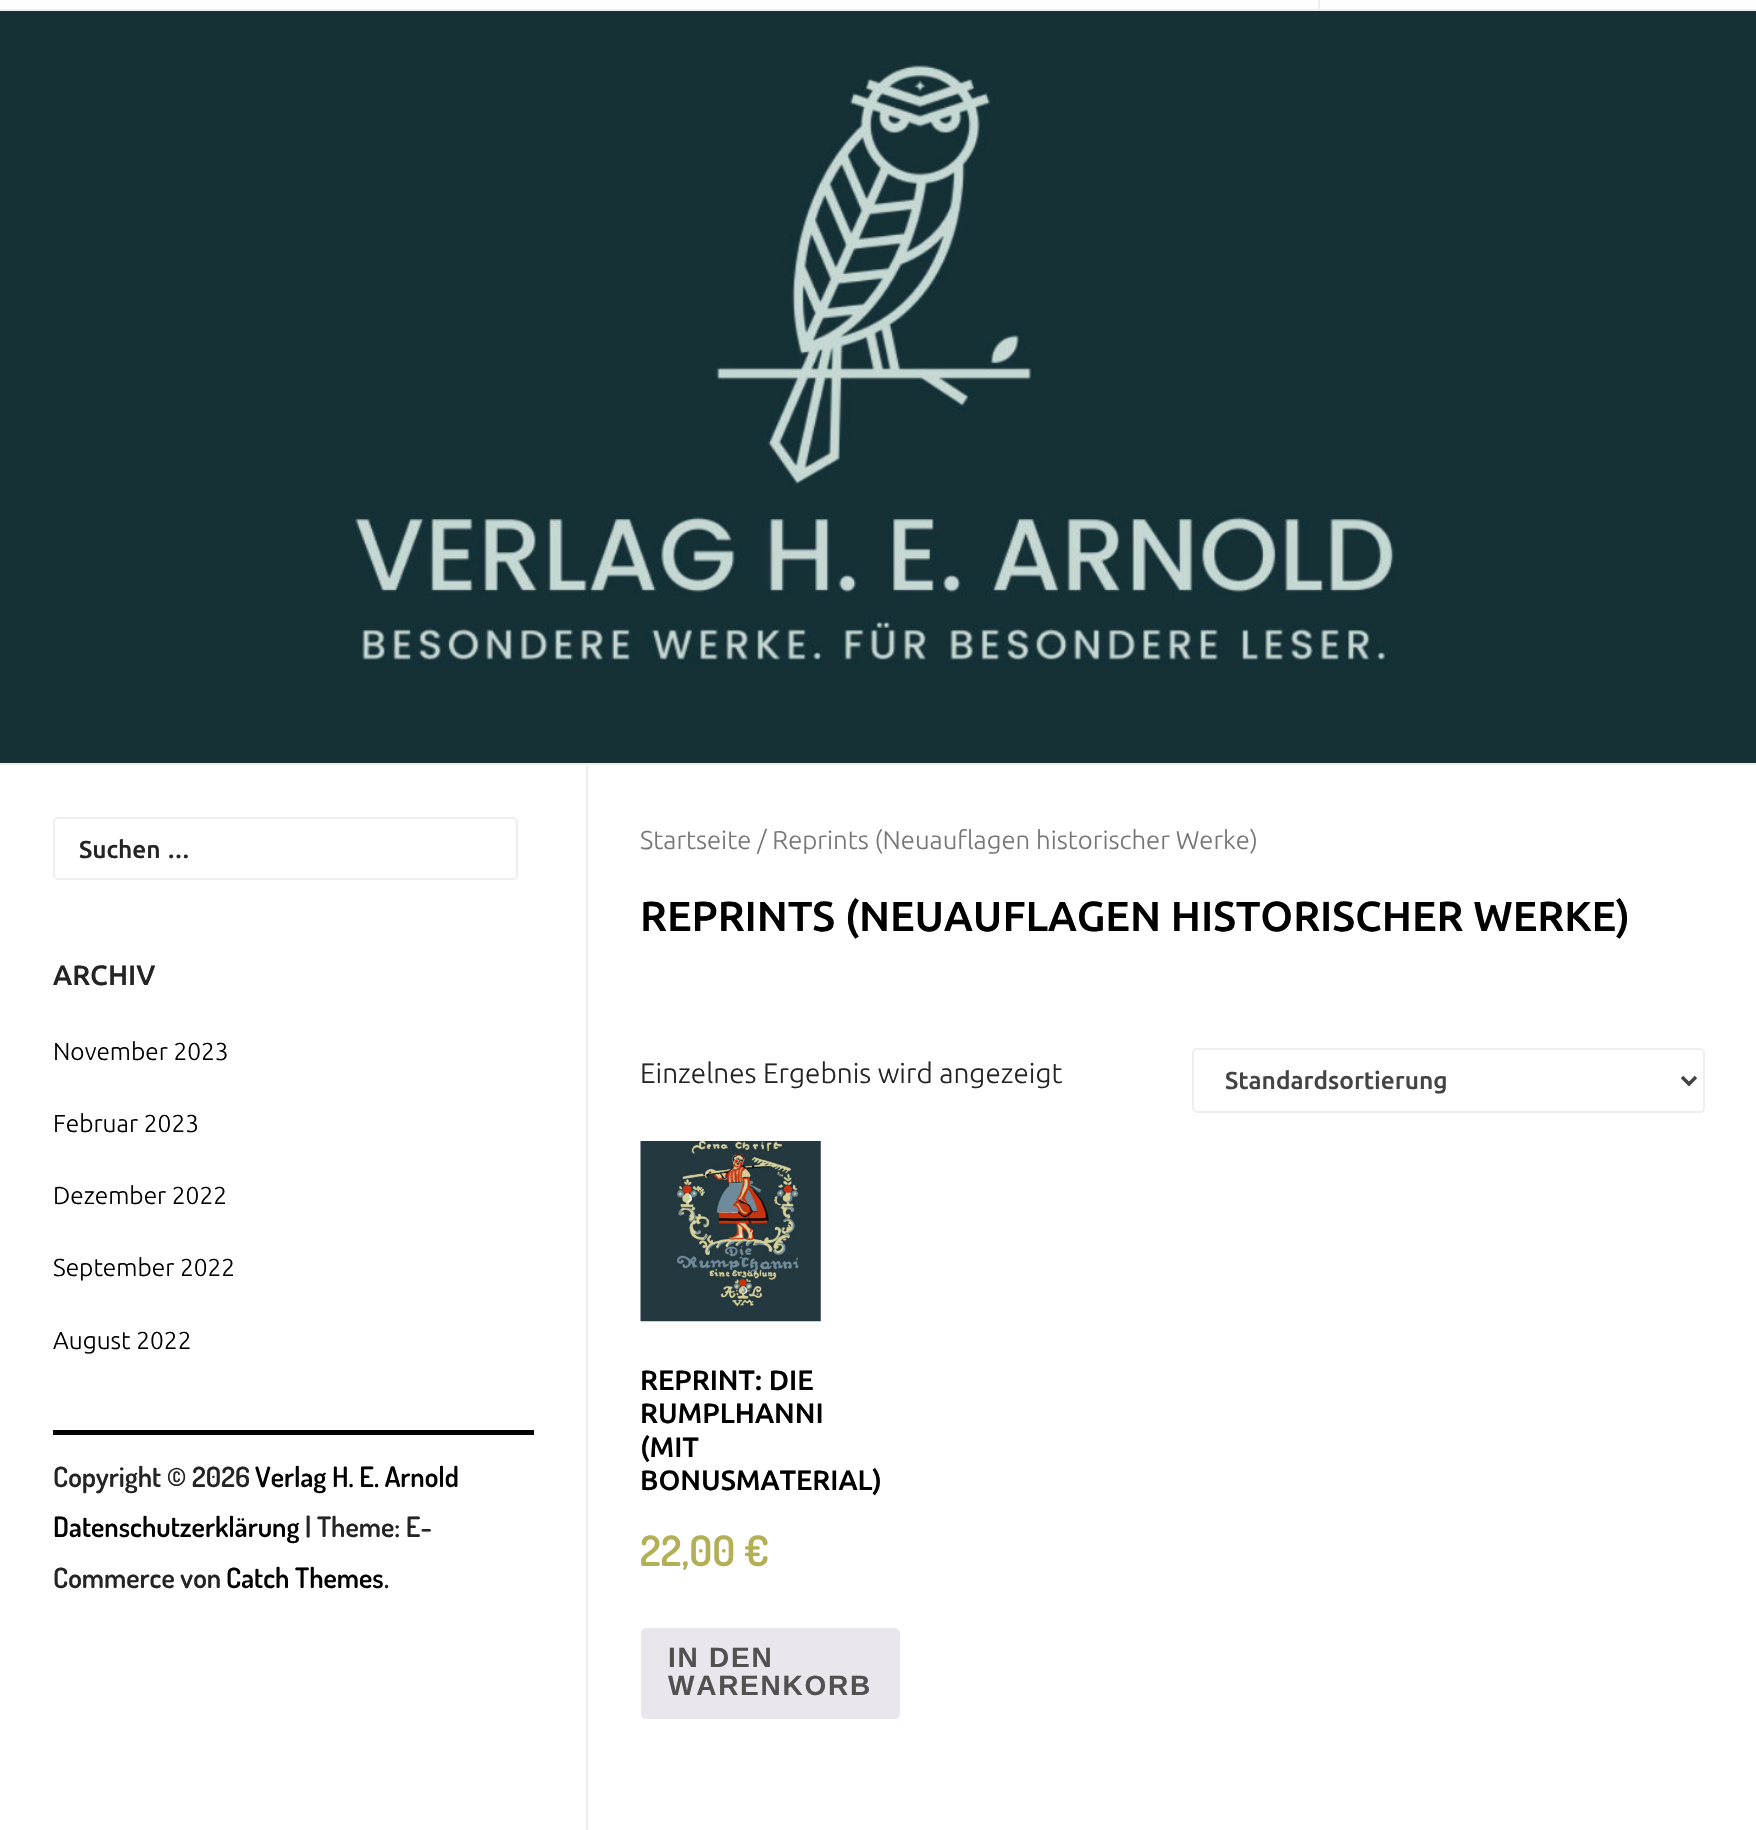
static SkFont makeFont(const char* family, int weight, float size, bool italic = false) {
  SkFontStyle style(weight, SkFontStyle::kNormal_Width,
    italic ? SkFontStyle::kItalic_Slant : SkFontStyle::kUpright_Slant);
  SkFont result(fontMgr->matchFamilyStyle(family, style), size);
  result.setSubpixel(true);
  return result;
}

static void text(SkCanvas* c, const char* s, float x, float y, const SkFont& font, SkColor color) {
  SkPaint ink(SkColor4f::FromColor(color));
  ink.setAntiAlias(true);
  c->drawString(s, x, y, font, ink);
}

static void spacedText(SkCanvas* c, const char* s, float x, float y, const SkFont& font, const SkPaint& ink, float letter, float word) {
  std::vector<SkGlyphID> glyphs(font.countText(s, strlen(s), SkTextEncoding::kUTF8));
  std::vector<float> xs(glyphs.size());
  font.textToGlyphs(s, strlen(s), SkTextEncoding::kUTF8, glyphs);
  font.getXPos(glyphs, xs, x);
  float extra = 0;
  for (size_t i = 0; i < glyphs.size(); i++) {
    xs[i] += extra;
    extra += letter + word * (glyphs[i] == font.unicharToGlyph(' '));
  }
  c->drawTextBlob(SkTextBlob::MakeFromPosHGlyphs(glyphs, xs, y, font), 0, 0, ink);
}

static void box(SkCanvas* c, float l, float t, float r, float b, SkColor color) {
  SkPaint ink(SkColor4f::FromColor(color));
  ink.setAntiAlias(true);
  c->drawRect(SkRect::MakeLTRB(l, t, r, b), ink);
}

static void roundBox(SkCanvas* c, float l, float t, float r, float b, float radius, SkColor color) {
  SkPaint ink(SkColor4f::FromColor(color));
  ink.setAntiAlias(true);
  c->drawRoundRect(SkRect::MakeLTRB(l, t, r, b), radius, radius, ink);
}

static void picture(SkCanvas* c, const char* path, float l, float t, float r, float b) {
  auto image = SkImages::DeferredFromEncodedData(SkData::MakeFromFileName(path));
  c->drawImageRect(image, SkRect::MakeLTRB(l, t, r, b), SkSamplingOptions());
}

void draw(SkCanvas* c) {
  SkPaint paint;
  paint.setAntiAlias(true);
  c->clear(0xffffffff);
  box(c, 0, 9, 1756, 11, 0xffeeeeee);
  box(c, 1318, 0, 1320, 9, 0xffeeeeee);
  box(c, 0, 763, 1756, 765, 0xffeeeeee);
  picture(c, "img_01.png", 0, 11, 1756, 763);
  paint.setStyle(SkPaint::kStroke_Style);
  paint.setStrokeWidth(2);
  paint.setColor(0xffeeeeee);
  c->drawRoundRect(SkRect::MakeLTRB(54, 818, 517, 879), 4, 4, paint);
  SkFont face1 = makeFont("Ubuntu", 500, 24.5f);
  text(c, "Suchen …", 79, 858, face1, 0xff242424);
  SkFont face2 = makeFont("Ubuntu", 500, 28);
  text(c, "ARCHIV", 53, 985, face2, 0xff242424);
  SkFont face3 = makeFont("Ubuntu", 300, 24.5f);
  text(c, "November 2023", 53, 1060, face3, 0xff000000);
  text(c, "Februar 2023", 53, 1132, face3, 0xff000000);
  text(c, "Dezember 2022", 53, 1204, face3, 0xff000000);
  text(c, "September 2022", 53, 1276, face3, 0xff000000);
  text(c, "August 2022", 53, 1349, face3, 0xff000000);
  box(c, 53, 1430, 534, 1435, 0xff000000);
  SkFont face4 = makeFont("Dosis", 600, 28);
  text(c, "Copyright © 2026", 53, 1487, face4, 0xff242424);
  text(c, "Verlag H. E. Arnold", 255, 1487, face4, 0xff000000);
  text(c, "Datenschutzerklärung", 53, 1537, face4, 0xff000000);
  text(c, "| Theme: E-", 305, 1537, face4, 0xff242424);
  text(c, "Commerce von", 53, 1588, face4, 0xff242424);
  text(c, "Catch Themes", 226, 1588, face4, 0xff000000);
  text(c, ".", 384, 1588, face4, 0xff242424);
  box(c, 586, 765, 588, 1830, 0xffeeeeee);
  SkFont face5 = makeFont("Ubuntu", 300, 25.75f);
  text(c, "Startseite / Reprints (Neuauflagen historischer Werke)", 640, 849, face5, 0xff767676);
  SkFont face6 = makeFont("Ubuntu", 500, 42);
  text(c, "REPRINTS (NEUAUFLAGEN HISTORISCHER WERKE)", 640, 931, face6, 0xff000000);
  SkFont face7 = makeFont("Ubuntu", 300, 28);
  text(c, "Einzelnes Ergebnis wird angezeigt", 640, 1083, face7, 0xff242424);
  c->drawRoundRect(SkRect::MakeLTRB(1193, 1049, 1704, 1112), 4, 4, paint);
  paint.setStrokeWidth(3.5f);
  paint.setColor(0xff444444);
  c->drawPath(SkPathBuilder().moveTo(1682, 1077).lineTo(1689, 1084).lineTo(1696, 1077).detach(), paint);
  text(c, "Standardsortierung", 1225, 1089, face1, 0xff444444);
  picture(c, "img_02.png", 640, 1141, 821, 1322);
  text(c, "REPRINT: DIE", 640, 1390, face2, 0xff000000);
  text(c, "RUMPLHANNI", 640, 1423, face2, 0xff000000);
  text(c, "(MIT", 640, 1457, face2, 0xff000000);
  text(c, "BONUSMATERIAL)", 640, 1490, face2, 0xff000000);
  SkFont face8 = makeFont("Dosis", 600, 42);
  text(c, "22,00 €", 640, 1566, face8, 0xffb3af54);
  roundBox(c, 641, 1628, 900, 1719, 5, 0xffe9e6ed);
  SkFont face9 = makeFont("Liberation Sans", 700, 28);
  paint.setStyle(SkPaint::kFill_Style);
  paint.setColor(0xff515151);
  spacedText(c, "IN DEN", 668, 1667, face9, paint, 1.75f, 0);
  spacedText(c, "WARENKORB", 668, 1695, face9, paint, 1.75f, 0);
}
